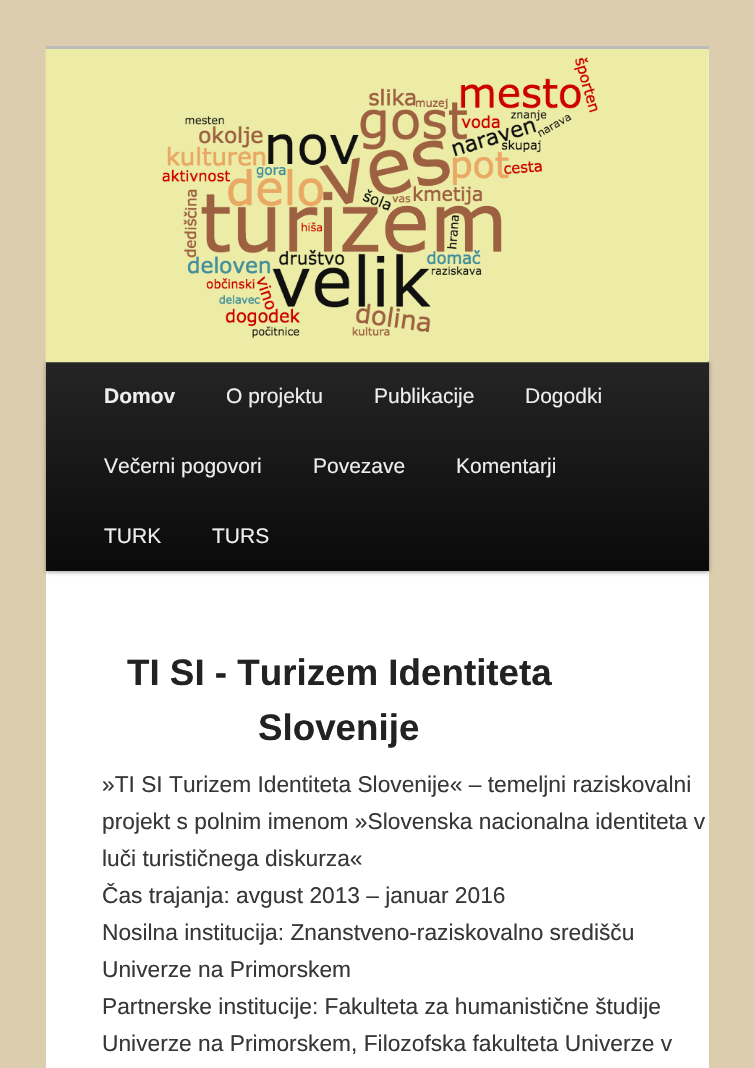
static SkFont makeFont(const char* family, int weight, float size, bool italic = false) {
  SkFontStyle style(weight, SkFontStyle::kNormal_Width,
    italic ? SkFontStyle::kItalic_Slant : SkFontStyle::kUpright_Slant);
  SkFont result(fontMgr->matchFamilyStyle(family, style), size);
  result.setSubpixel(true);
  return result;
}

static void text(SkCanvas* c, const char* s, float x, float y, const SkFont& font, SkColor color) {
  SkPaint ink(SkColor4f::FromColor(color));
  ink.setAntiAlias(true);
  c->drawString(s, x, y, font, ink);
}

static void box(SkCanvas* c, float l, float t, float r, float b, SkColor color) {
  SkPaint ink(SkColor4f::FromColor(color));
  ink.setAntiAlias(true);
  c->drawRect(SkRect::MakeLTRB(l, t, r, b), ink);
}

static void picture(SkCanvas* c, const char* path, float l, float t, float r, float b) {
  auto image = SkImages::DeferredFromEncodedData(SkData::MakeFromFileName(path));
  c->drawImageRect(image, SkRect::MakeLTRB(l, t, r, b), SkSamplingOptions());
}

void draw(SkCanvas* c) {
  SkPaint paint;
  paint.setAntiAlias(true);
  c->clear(0xffdbcdad);
  box(c, 46, 50, 709, 1068, 0xffffffff);
  box(c, 46, 46, 709, 50, 0xffbbbbbb);
  paint.setColor(0x66000000);
  paint.setMaskFilter(SkMaskFilter::MakeBlur(kNormal_SkBlurStyle, 2));
  c->drawRect(SkRect::MakeLTRB(46, 362, 709, 572), paint);
  paint.setMaskFilter(nullptr);
  {
    const SkColor colors[] = {0xff252525, 0xff0a0a0a};
    const float stops[] = {0, 1};
    const SkPoint ends[] = {{377, 360}, {377, 571}};
    paint.setShader(SkGradientShader::MakeLinear(ends, colors, stops, 2, SkTileMode::kClamp));
    paint.setAlpha(255);
  }
  c->drawRect(SkRect::MakeLTRB(46, 361, 709, 571), paint);
  picture(c, "img_01.png", 45, 49, 709, 363);
  SkFont face1 = makeFont("Liberation Sans", 700, 21);
  text(c, "Domov", 104, 403, face1, 0xffeeeeee);
  SkFont face2 = makeFont("Liberation Sans", 400, 21);
  text(c, "O projektu", 226, 403, face2, 0xffeeeeee);
  text(c, "Publikacije", 374, 403, face2, 0xffeeeeee);
  text(c, "Dogodki", 525, 403, face2, 0xffeeeeee);
  text(c, "Večerni pogovori", 104, 473, face2, 0xffeeeeee);
  text(c, "Povezave", 313, 473, face2, 0xffeeeeee);
  text(c, "Komentarji", 456, 473, face2, 0xffeeeeee);
  text(c, "TURK", 104, 543, face2, 0xffeeeeee);
  text(c, "TURS", 212, 543, face2, 0xffeeeeee);
  SkFont face3 = makeFont("Liberation Sans", 700, 36.75f);
  text(c, "TI SI - Turizem Identiteta", 127, 685, face3, 0xff222222);
  text(c, "Slovenije", 258, 740, face3, 0xff222222);
  SkFont face4 = makeFont("Liberation Sans", 400, 22.75f);
  text(c, "»TI SI Turizem Identiteta Slovenije« – temeljni raziskovalni", 102, 792, face4, 0xff373737);
  text(c, "projekt s polnim imenom »Slovenska nacionalna identiteta v", 102, 829, face4, 0xff373737);
  text(c, "luči turističnega diskurza«", 102, 866, face4, 0xff373737);
  text(c, "Čas trajanja: avgust 2013 – januar 2016", 102, 903, face4, 0xff373737);
  text(c, "Nosilna institucija: Znanstveno-raziskovalno središču", 102, 940, face4, 0xff373737);
  text(c, "Univerze na Primorskem", 102, 977, face4, 0xff373737);
  text(c, "Partnerske institucije: Fakulteta za humanistične študije", 102, 1014, face4, 0xff373737);
  text(c, "Univerze na Primorskem, Filozofska fakulteta Univerze v", 102, 1051, face4, 0xff373737);
}
